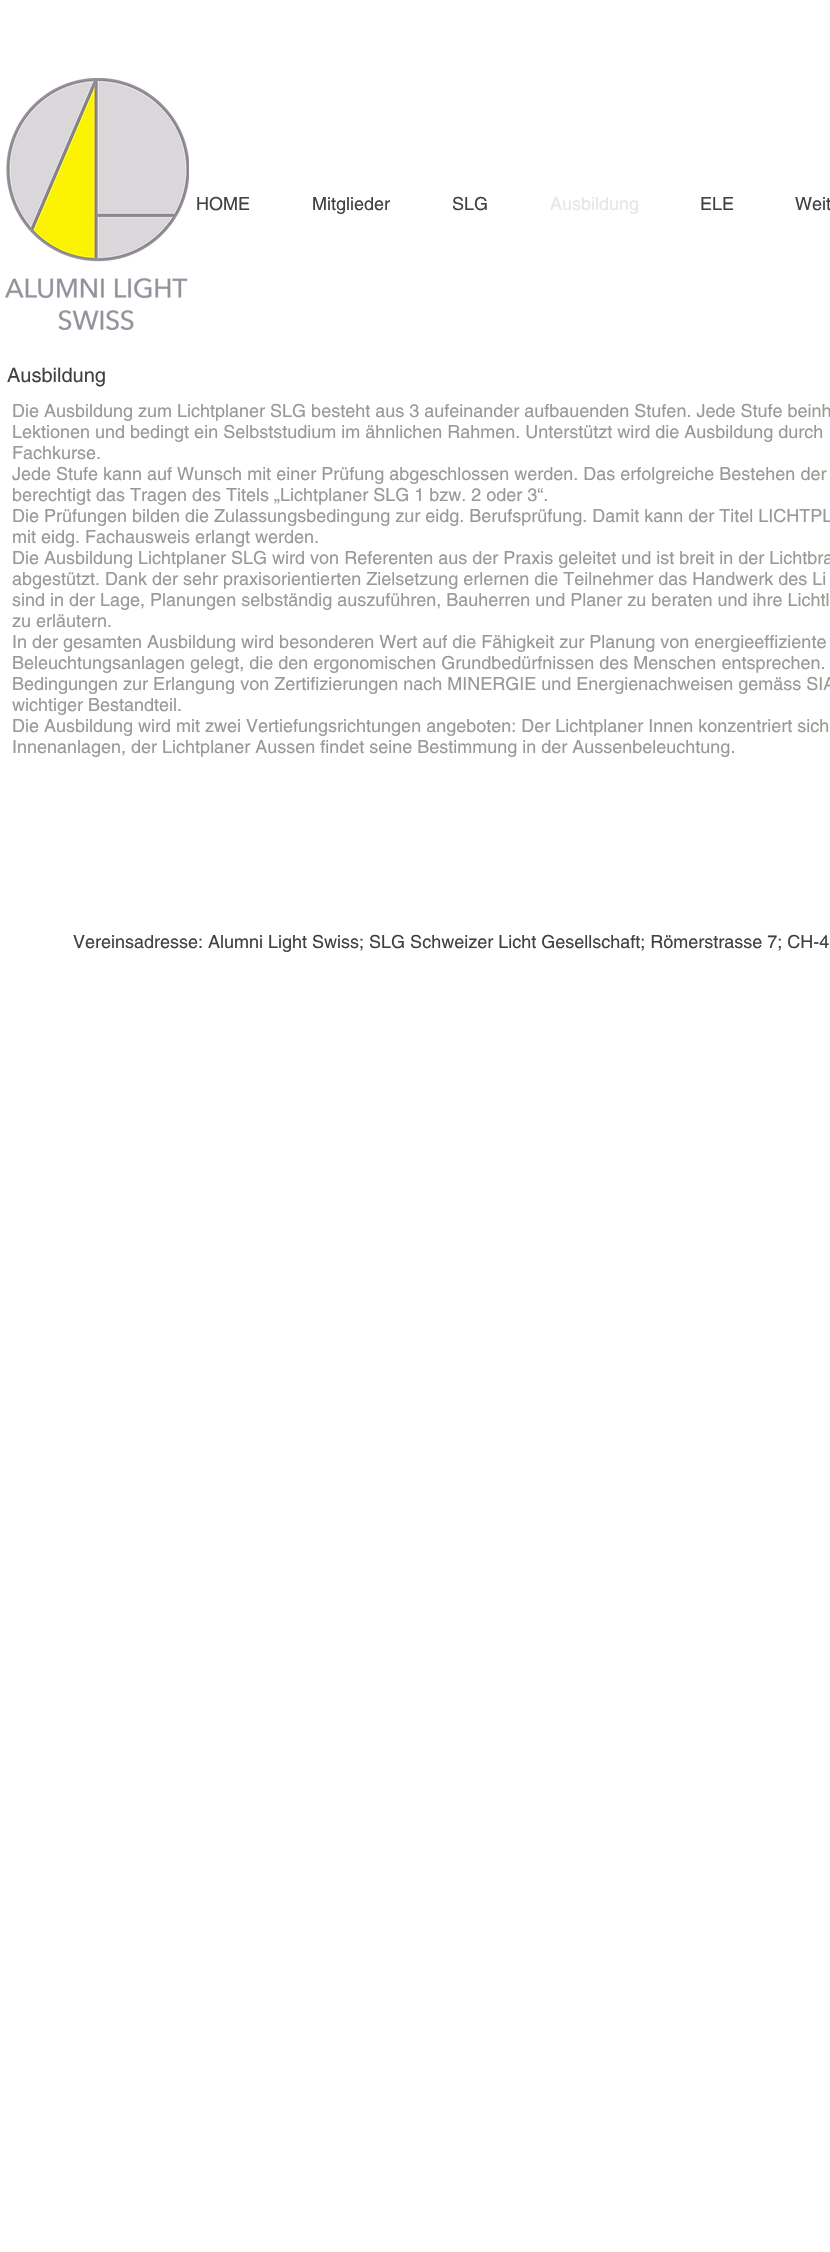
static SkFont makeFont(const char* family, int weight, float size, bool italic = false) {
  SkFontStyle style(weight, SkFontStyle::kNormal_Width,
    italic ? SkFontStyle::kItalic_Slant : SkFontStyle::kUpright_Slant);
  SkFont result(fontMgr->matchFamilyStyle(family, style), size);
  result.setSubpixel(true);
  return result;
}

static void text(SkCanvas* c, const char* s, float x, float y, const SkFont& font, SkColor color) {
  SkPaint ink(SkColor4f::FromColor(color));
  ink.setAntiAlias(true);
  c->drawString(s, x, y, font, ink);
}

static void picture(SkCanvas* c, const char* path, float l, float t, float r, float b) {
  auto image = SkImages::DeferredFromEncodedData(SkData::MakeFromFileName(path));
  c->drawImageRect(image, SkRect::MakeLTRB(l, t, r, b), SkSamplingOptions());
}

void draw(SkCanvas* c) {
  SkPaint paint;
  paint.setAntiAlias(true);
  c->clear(0xffffffff);
  picture(c, "img_01.png", 5, 78, 189, 330);
  SkFont face1 = makeFont("helvetica", 400, 18);
  text(c, "HOME", 196, 210, face1, 0xff414141);
  text(c, "Mitglieder", 312, 210, face1, 0xff414141);
  text(c, "SLG", 452, 210, face1, 0xff414141);
  text(c, "Ausbildung", 550, 210, face1, 0xffe8e6e6);
  text(c, "ELE", 700, 210, face1, 0xff414141);
  text(c, "Weit", 795, 210, face1, 0xff414141);
  SkFont face2 = makeFont("helvetica", 400, 20);
  text(c, "Ausbildung", 7, 382, face2, 0xff414141);
  text(c, "Die Ausbildung zum Lichtplaner SLG besteht aus 3 aufeinander aufbauenden Stufen. Jede Stufe beinh", 12, 417, face1, 0xff999997);
  text(c, "Lektionen und bedingt ein Selbststudium im ähnlichen Rahmen. Unterstützt wird die Ausbildung durch", 12, 438, face1, 0xff999997);
  text(c, "Fachkurse.", 12, 459, face1, 0xff999997);
  text(c, "Jede Stufe kann auf Wunsch mit einer Prüfung abgeschlossen werden. Das erfolgreiche Bestehen der", 12, 480, face1, 0xff999997);
  text(c, "berechtigt das Tragen des Titels „Lichtplaner SLG 1 bzw. 2 oder 3“.", 12, 501, face1, 0xff999997);
  text(c, "Die Prüfungen bilden die Zulassungsbedingung zur eidg. Berufsprüfung. Damit kann der Titel LICHTPL", 12, 522, face1, 0xff999997);
  text(c, "mit eidg. Fachausweis erlangt werden.", 12, 543, face1, 0xff999997);
  text(c, "Die Ausbildung Lichtplaner SLG wird von Referenten aus der Praxis geleitet und ist breit in der Lichtbra", 12, 564, face1, 0xff999997);
  text(c, "abgestützt. Dank der sehr praxisorientierten Zielsetzung erlernen die Teilnehmer das Handwerk des Li", 12, 585, face1, 0xff999997);
  text(c, "sind in der Lage, Planungen selbständig auszuführen, Bauherren und Planer zu beraten und ihre Lichtl", 12, 606, face1, 0xff999997);
  text(c, "zu erläutern.", 12, 627, face1, 0xff999997);
  text(c, "In der gesamten Ausbildung wird besonderen Wert auf die Fähigkeit zur Planung von energieeffiziente", 12, 648, face1, 0xff999997);
  text(c, "Beleuchtungsanlagen gelegt, die den ergonomischen Grundbedürfnissen des Menschen entsprechen.", 12, 669, face1, 0xff999997);
  text(c, "Bedingungen zur Erlangung von Zertifizierungen nach MINERGIE und Energienachweisen gemäss SIA", 12, 690, face1, 0xff999997);
  text(c, "wichtiger Bestandteil.", 12, 711, face1, 0xff999997);
  text(c, "Die Ausbildung wird mit zwei Vertiefungsrichtungen angeboten: Der Lichtplaner Innen konzentriert sich", 12, 732, face1, 0xff999997);
  text(c, "Innenanlagen, der Lichtplaner Aussen findet seine Bestimmung in der Aussenbeleuchtung.", 12, 753, face1, 0xff999997);
  text(c, "Vereinsadresse: Alumni Light Swiss; SLG Schweizer Licht Gesellschaft; Römerstrasse 7; CH-4", 73, 948, face1, 0xff414141);
}
